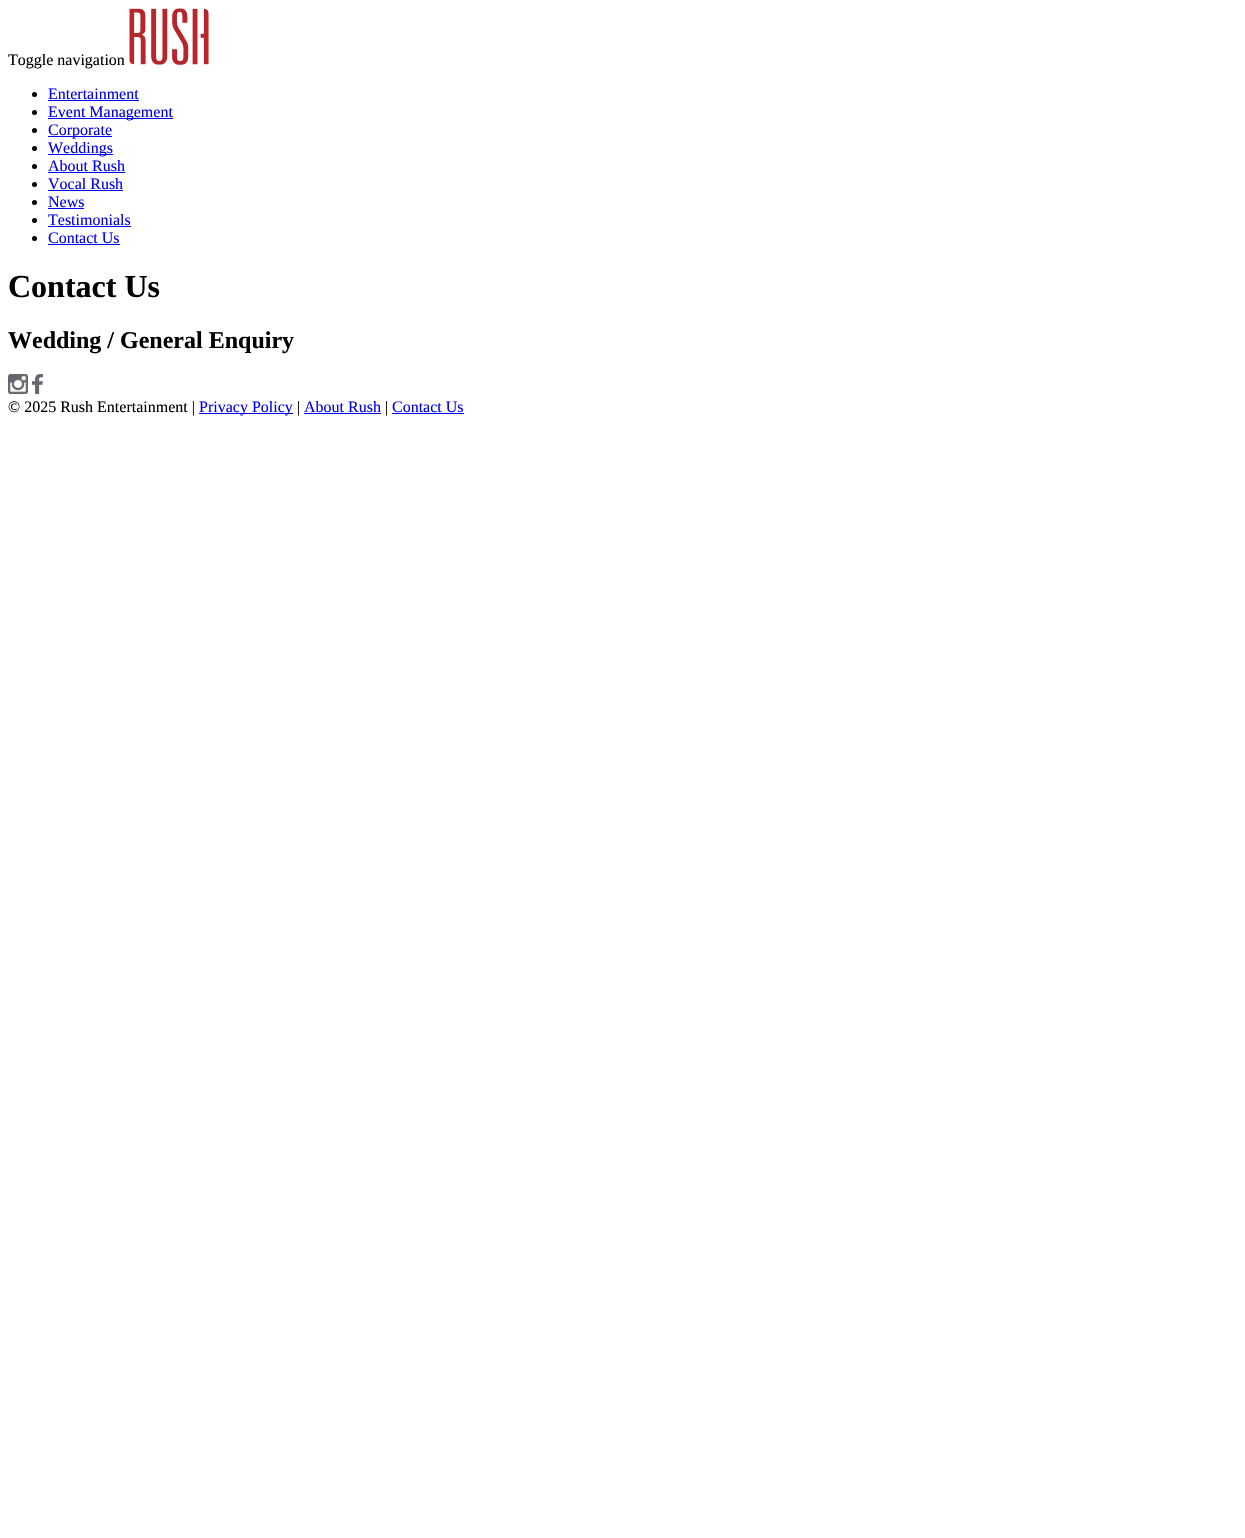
static SkFont makeFont(const char* family, int weight, float size, bool italic = false) {
  SkFontStyle style(weight, SkFontStyle::kNormal_Width,
    italic ? SkFontStyle::kItalic_Slant : SkFontStyle::kUpright_Slant);
  SkFont result(fontMgr->matchFamilyStyle(family, style), size);
  result.setSubpixel(true);
  return result;
}

static void text(SkCanvas* c, const char* s, float x, float y, const SkFont& font, SkColor color) {
  SkPaint ink(SkColor4f::FromColor(color));
  ink.setAntiAlias(true);
  c->drawString(s, x, y, font, ink);
}

static void box(SkCanvas* c, float l, float t, float r, float b, SkColor color) {
  SkPaint ink(SkColor4f::FromColor(color));
  ink.setAntiAlias(true);
  c->drawRect(SkRect::MakeLTRB(l, t, r, b), ink);
}

static void picture(SkCanvas* c, const char* path, float l, float t, float r, float b) {
  auto image = SkImages::DeferredFromEncodedData(SkData::MakeFromFileName(path));
  c->drawImageRect(image, SkRect::MakeLTRB(l, t, r, b), SkSamplingOptions());
}

void draw(SkCanvas* c) {
  SkPaint paint;
  paint.setAntiAlias(true);
  c->clear(0xffffffff);
  SkFont face1 = makeFont("Liberation Serif", 400, 16);
  text(c, "Toggle navigation", 8, 65, face1, 0xff000000);
  picture(c, "img_01.png", 129, 8, 209, 65);
  paint.setColor(0xff000000);
  c->drawCircle(34.5f, 94.5f, 2.5f, paint);
  text(c, "Entertainment", 48, 99, face1, 0xff0000ee);
  box(c, 48, 100, 139, 101, 0xff0000ee);
  c->drawCircle(34.5f, 112.5f, 2.5f, paint);
  box(c, 48, 118, 173, 119, 0xff0000ee);
  text(c, "Event Management", 48, 117, face1, 0xff0000ee);
  c->drawCircle(34.5f, 130.5f, 2.5f, paint);
  box(c, 48, 136, 112, 137, 0xff0000ee);
  text(c, "Corporate", 48, 135, face1, 0xff0000ee);
  c->drawCircle(34.5f, 148.5f, 2.5f, paint);
  box(c, 48, 154, 113, 155, 0xff0000ee);
  text(c, "Weddings", 48, 153, face1, 0xff0000ee);
  c->drawCircle(34.5f, 166.5f, 2.5f, paint);
  text(c, "About Rush", 48, 171, face1, 0xff0000ee);
  box(c, 48, 172, 125, 173, 0xff0000ee);
  c->drawCircle(34.5f, 184.5f, 2.5f, paint);
  text(c, "Vocal Rush", 48, 189, face1, 0xff0000ee);
  box(c, 48, 190, 123, 191, 0xff0000ee);
  c->drawCircle(34.5f, 202.5f, 2.5f, paint);
  text(c, "News", 48, 207, face1, 0xff0000ee);
  box(c, 48, 208, 84, 209, 0xff0000ee);
  c->drawCircle(34.5f, 220.5f, 2.5f, paint);
  text(c, "Testimonials", 48, 225, face1, 0xff0000ee);
  box(c, 48, 226, 131, 227, 0xff0000ee);
  c->drawCircle(34.5f, 238.5f, 2.5f, paint);
  text(c, "Contact Us", 48, 243, face1, 0xff0000ee);
  box(c, 48, 244, 120, 245, 0xff0000ee);
  SkFont face2 = makeFont("Liberation Serif", 700, 32);
  text(c, "Contact Us", 8, 297, face2, 0xff000000);
  SkFont face3 = makeFont("Liberation Serif", 700, 24);
  text(c, "Wedding / General Enquiry", 8, 348, face3, 0xff000000);
  picture(c, "img_02.png", 8, 374, 28, 394);
  picture(c, "img_03.png", 32, 374, 43, 394);
  text(c, "© 2025 Rush Entertainment |", 8, 412, face1, 0xff000000);
  box(c, 199, 413, 293, 414, 0xff0000ee);
  text(c, "Privacy Policy", 199, 412, face1, 0xff0000ee);
  text(c, "|", 297, 412, face1, 0xff000000);
  text(c, "About Rush", 304, 412, face1, 0xff0000ee);
  box(c, 304, 413, 381, 414, 0xff0000ee);
  text(c, "|", 385, 412, face1, 0xff000000);
  text(c, "Contact Us", 392, 412, face1, 0xff0000ee);
  box(c, 392, 413, 464, 414, 0xff0000ee);
}
